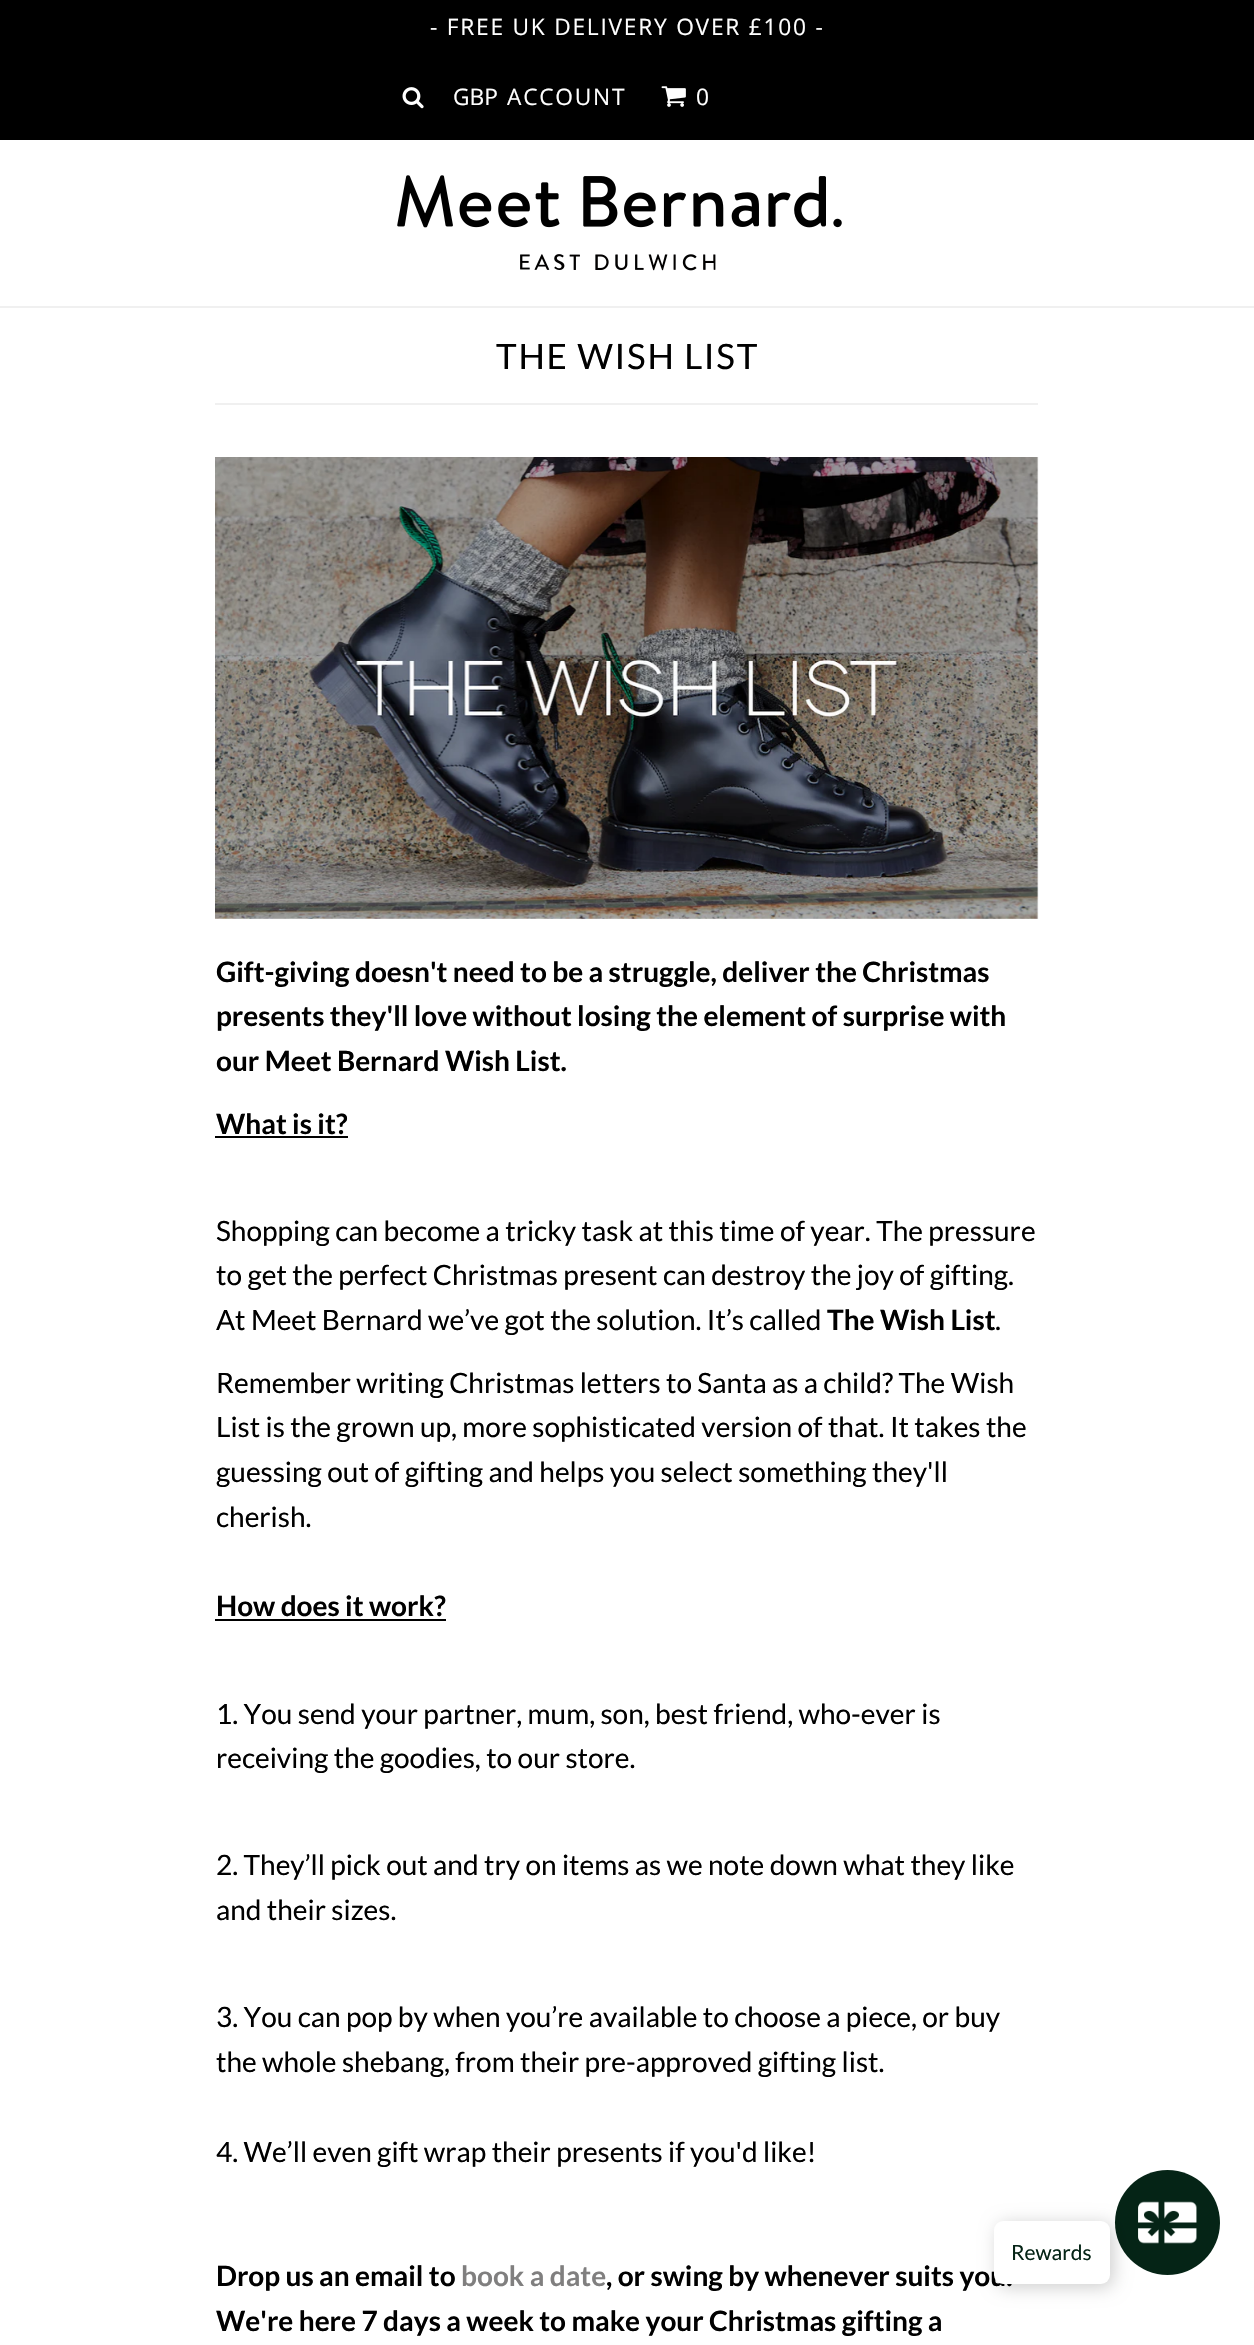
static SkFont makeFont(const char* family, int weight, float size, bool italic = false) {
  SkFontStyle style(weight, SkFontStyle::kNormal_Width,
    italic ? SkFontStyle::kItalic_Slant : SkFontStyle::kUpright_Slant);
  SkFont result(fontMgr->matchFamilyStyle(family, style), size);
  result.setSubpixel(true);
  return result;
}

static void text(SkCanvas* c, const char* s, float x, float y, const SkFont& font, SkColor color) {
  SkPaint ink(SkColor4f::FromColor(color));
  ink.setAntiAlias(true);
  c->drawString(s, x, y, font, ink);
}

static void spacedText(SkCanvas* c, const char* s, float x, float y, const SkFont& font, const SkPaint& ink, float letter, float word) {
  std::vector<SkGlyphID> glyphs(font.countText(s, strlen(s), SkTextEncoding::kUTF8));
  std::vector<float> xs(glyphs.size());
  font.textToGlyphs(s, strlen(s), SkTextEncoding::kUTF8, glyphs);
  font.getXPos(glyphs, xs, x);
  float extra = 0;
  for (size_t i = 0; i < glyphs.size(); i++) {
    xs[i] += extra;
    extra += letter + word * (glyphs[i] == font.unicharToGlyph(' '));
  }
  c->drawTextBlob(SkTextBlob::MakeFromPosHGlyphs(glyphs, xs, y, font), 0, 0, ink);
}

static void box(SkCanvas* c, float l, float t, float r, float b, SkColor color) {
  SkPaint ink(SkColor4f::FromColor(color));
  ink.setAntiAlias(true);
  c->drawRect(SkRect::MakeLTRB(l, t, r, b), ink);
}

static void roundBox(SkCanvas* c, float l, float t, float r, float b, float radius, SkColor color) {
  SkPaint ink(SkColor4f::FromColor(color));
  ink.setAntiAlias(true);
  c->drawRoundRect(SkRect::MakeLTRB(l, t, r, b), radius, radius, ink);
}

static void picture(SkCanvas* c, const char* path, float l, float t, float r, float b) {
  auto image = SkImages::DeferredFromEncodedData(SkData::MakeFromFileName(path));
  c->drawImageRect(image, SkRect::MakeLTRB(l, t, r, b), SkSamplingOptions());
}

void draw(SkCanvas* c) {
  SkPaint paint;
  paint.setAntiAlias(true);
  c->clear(0xffffffff);
  box(c, 0, 306, 1254, 308, 0xfff0f0f0);
  box(c, 0, 0, 1254, 140, 0xff000000);
  SkFont face1 = makeFont("Open Sans", 400, 22.75f);
  paint.setColor(0xffffffff);
  spacedText(c, "- FREE UK DELIVERY OVER £100 -", 430, 35, face1, paint, 1.75f, 0);
  picture(c, "img_01.png", 402, 87, 424, 109);
  text(c, "GBP", 453, 105, face1, 0xffffffff);
  spacedText(c, "ACCOUNT", 507, 105, face1, paint, 1.75f, 0);
  picture(c, "img_02.png", 661, 86, 686, 107);
  spacedText(c, "0", 696, 105, face1, paint, 1.75f, 0);
  picture(c, "img_03.png", 397, 175, 842, 271);
  box(c, 215, 403, 1038, 405, 0xfff0f0f0);
  SkFont face2 = makeFont("Lato", 400, 35);
  paint.setColor(0xff000000);
  spacedText(c, "THE WISH LIST", 496, 369, face2, paint, 1.75f, 0);
  picture(c, "img_04.png", 215, 457, 1039, 919);
  SkFont face3 = makeFont("Lato", 700, 28);
  text(c, "Gift-giving doesn't need to be a struggle, deliver the Christmas", 216, 982, face3, 0xff000000);
  text(c, "presents they'll love without losing the element of surprise with", 216, 1026, face3, 0xff000000);
  text(c, "our Meet Bernard Wish List.", 216, 1071, face3, 0xff000000);
  text(c, "What is it?", 216, 1134, face3, 0xff000000);
  box(c, 215, 1136, 348, 1138, 0xff000000);
  SkFont face4 = makeFont("Lato", 400, 28);
  text(c, "Shopping can become a tricky task at this time of year. The pressure", 216, 1241, face4, 0xff000000);
  text(c, "to get the perfect Christmas present can destroy the joy of gifting.", 216, 1285, face4, 0xff000000);
  text(c, "At Meet Bernard we’ve got the solution. It’s called", 216, 1330, face4, 0xff000000);
  text(c, "The Wish List", 827, 1330, face3, 0xff000000);
  text(c, ".", 995, 1330, face4, 0xff000000);
  text(c, "Remember writing Christmas letters to Santa as a child? The Wish", 216, 1393, face4, 0xff000000);
  text(c, "List is the grown up, more sophisticated version of that. It takes the", 216, 1437, face4, 0xff000000);
  text(c, "guessing out of gifting and helps you select something they'll", 216, 1482, face4, 0xff000000);
  text(c, "cherish.", 216, 1527, face4, 0xff000000);
  text(c, "How does it work?", 216, 1616, face3, 0xff000000);
  box(c, 215, 1619, 446, 1621, 0xff000000);
  text(c, "1. You send your partner, mum, son, best friend, who-ever is", 216, 1724, face4, 0xff000000);
  text(c, "receiving the goodies, to our store.", 216, 1768, face4, 0xff000000);
  text(c, "2. They’ll pick out and try on items as we note down what they like", 216, 1875, face4, 0xff000000);
  text(c, "and their sizes.", 216, 1920, face4, 0xff000000);
  text(c, "3. You can pop by when you’re available to choose a piece, or buy", 216, 2027, face4, 0xff000000);
  text(c, "the whole shebang, from their pre-approved gifting list.", 216, 2072, face4, 0xff000000);
  text(c, "4. We’ll even gift wrap their presents if you'd like!", 216, 2162, face4, 0xff000000);
  text(c, "Drop us an email to", 216, 2286, face3, 0xff000000);
  text(c, "book a date", 461, 2286, face3, 0xff807f7f);
  text(c, ", or swing by whenever suits you.", 606, 2286, face3, 0xff000000);
  text(c, "We're here 7 days a week to make your Christmas gifting a", 216, 2331, face3, 0xff000000);
  paint.setColor(0xff052416);
  c->drawCircle(1167.5f, 2222.5f, 52.5f, paint);
  picture(c, "img_05.png", 1138, 2201, 1197, 2244);
  paint.setColor(0x33000000);
  paint.setMaskFilter(SkMaskFilter::MakeBlur(kNormal_SkBlurStyle, 9));
  c->drawRoundRect(SkRect::MakeLTRB(998, 2224, 1113, 2287), 9, 9, paint);
  paint.setMaskFilter(nullptr);
  roundBox(c, 994, 2221, 1110, 2284, 9, 0xffffffff);
  SkFont face5 = makeFont("Lato", 400, 21);
  text(c, "Rewards", 1011, 2260, face5, 0xff052416);
}
